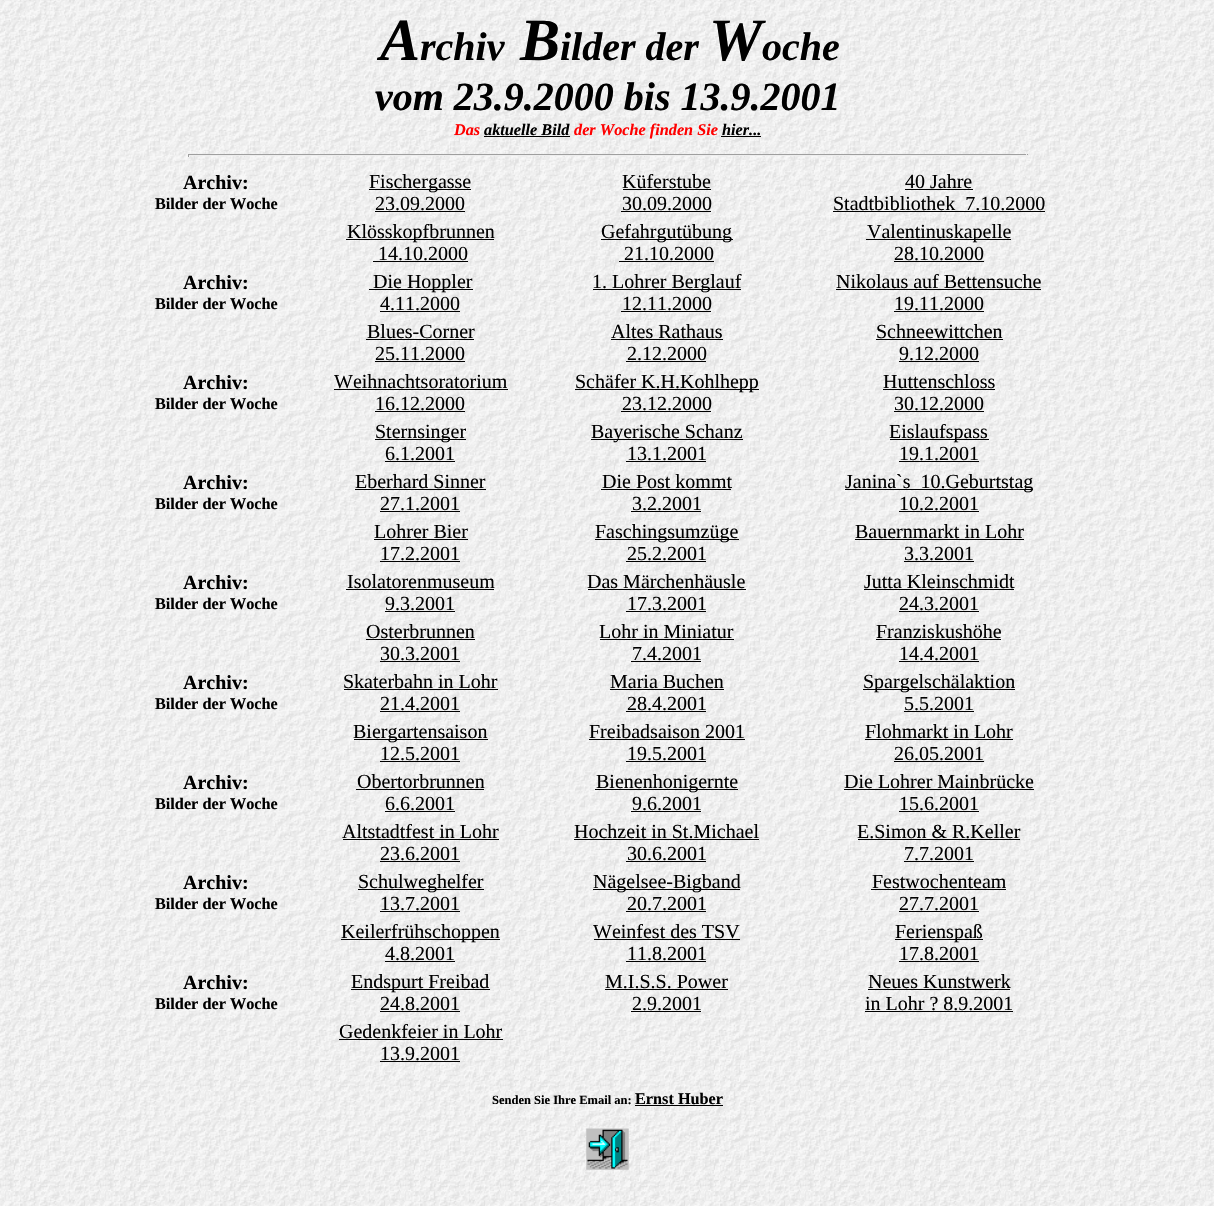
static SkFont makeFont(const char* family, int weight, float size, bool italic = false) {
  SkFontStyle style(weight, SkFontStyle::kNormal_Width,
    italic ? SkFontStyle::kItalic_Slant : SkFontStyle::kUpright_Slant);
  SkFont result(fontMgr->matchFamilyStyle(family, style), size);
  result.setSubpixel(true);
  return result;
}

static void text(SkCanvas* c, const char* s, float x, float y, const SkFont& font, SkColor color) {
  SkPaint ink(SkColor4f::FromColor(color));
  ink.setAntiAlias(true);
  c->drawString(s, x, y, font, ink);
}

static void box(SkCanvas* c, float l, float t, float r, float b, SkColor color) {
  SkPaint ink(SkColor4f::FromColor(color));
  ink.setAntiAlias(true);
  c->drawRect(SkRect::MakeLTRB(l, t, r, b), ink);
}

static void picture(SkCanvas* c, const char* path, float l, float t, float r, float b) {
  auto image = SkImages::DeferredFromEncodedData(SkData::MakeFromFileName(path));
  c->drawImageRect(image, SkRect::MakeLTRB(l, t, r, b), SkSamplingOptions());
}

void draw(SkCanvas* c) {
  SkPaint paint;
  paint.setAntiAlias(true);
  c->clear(0xffffffff);
  picture(c, "img_01.png", 0, 0, 1214, 1206);
  SkFont face1 = makeFont("Liberation Serif", 700, 60, true);
  text(c, "A", 380, 60, face1, 0xff000000);
  SkFont face2 = makeFont("Liberation Serif", 700, 40, true);
  text(c, "rchiv", 420, 60, face2, 0xff000000);
  text(c, "B", 520, 60, face1, 0xff000000);
  text(c, "ilder der", 560, 60, face2, 0xff000000);
  text(c, "W", 709, 60, face1, 0xff000000);
  text(c, "oche", 762, 60, face2, 0xff000000);
  text(c, "vom 23.9.2000 bis 13.9.2001", 375, 110, face2, 0xff000000);
  SkFont face3 = makeFont("Liberation Serif", 700, 16.25f, true);
  text(c, "Das", 454, 135, face3, 0xffff0000);
  text(c, "aktuelle Bild", 484, 135, face3, 0xff000000);
  box(c, 484, 136, 570, 137, 0xff000000);
  text(c, "der Woche finden Sie", 574, 135, face3, 0xffff0000);
  box(c, 721, 136, 761, 137, 0xff000000);
  text(c, "hier...", 722, 135, face3, 0xff000000);
  box(c, 188, 154, 1028, 155, 0xff9f9f9f);
  box(c, 1026, 154, 1027, 157, 0xffeeeeee);
  box(c, 188, 155, 1028, 156, 0xffeeeeee);
  box(c, 188, 154, 189, 157, 0xff9f9f9f);
  SkFont face4 = makeFont("Liberation Serif", 700, 20);
  text(c, "Archiv:", 183, 189, face4, 0xff000000);
  SkFont face5 = makeFont("Liberation Serif", 700, 16.25f);
  text(c, "Bilder der Woche", 155, 209, face5, 0xff000000);
  box(c, 369, 189, 471, 190, 0xff000000);
  SkFont face6 = makeFont("Liberation Serif", 400, 20);
  text(c, "Fischergasse", 369, 188, face6, 0xff000000);
  text(c, "23.09.2000", 375, 210, face6, 0xff000000);
  box(c, 375, 211, 465, 212, 0xff000000);
  text(c, "Küferstube", 622, 188, face6, 0xff000000);
  box(c, 623, 189, 711, 190, 0xff000000);
  text(c, "30.09.2000", 622, 210, face6, 0xff000000);
  box(c, 621, 211, 711, 212, 0xff000000);
  text(c, "40 Jahre", 905, 188, face6, 0xff000000);
  box(c, 905, 189, 973, 190, 0xff000000);
  text(c, "Stadtbibliothek  7.10.2000", 833, 210, face6, 0xff000000);
  box(c, 833, 211, 1045, 212, 0xff000000);
  box(c, 346, 239, 494, 240, 0xff000000);
  text(c, "Klösskopfbrunnen", 347, 238, face6, 0xff000000);
  text(c, "14.10.2000", 378, 260, face6, 0xff000000);
  box(c, 373, 261, 468, 262, 0xff000000);
  box(c, 601, 239, 733, 240, 0xff000000);
  text(c, "Gefahrgutübung", 601, 238, face6, 0xff000000);
  text(c, "21.10.2000", 624, 260, face6, 0xff000000);
  box(c, 619, 261, 714, 262, 0xff000000);
  box(c, 866, 239, 1011, 240, 0xff000000);
  text(c, "Valentinuskapelle", 867, 238, face6, 0xff000000);
  text(c, "28.10.2000", 894, 260, face6, 0xff000000);
  box(c, 894, 261, 984, 262, 0xff000000);
  text(c, "Archiv:", 183, 289, face4, 0xff000000);
  text(c, "Bilder der Woche", 155, 309, face5, 0xff000000);
  box(c, 369, 289, 473, 290, 0xff000000);
  text(c, "Die Hoppler", 373, 288, face6, 0xff000000);
  text(c, "4.11.2000", 380, 310, face6, 0xff000000);
  box(c, 380, 311, 460, 312, 0xff000000);
  box(c, 593, 289, 741, 290, 0xff000000);
  text(c, "1. Lohrer Berglauf", 592, 288, face6, 0xff000000);
  text(c, "12.11.2000", 622, 310, face6, 0xff000000);
  box(c, 621, 311, 711, 312, 0xff000000);
  text(c, "Nikolaus auf Bettensuche", 836, 288, face6, 0xff000000);
  box(c, 836, 289, 1041, 290, 0xff000000);
  text(c, "19.11.2000", 894, 310, face6, 0xff000000);
  box(c, 894, 311, 984, 312, 0xff000000);
  text(c, "Blues-Corner", 367, 338, face6, 0xff000000);
  box(c, 366, 339, 474, 340, 0xff000000);
  text(c, "25.11.2000", 375, 360, face6, 0xff000000);
  box(c, 375, 361, 465, 362, 0xff000000);
  text(c, "Altes Rathaus", 611, 338, face6, 0xff000000);
  box(c, 611, 339, 723, 340, 0xff000000);
  text(c, "2.12.2000", 627, 360, face6, 0xff000000);
  box(c, 626, 361, 706, 362, 0xff000000);
  text(c, "Schneewittchen", 876, 338, face6, 0xff000000);
  box(c, 876, 339, 1003, 340, 0xff000000);
  text(c, "9.12.2000", 899, 360, face6, 0xff000000);
  box(c, 899, 361, 979, 362, 0xff000000);
  text(c, "Archiv:", 183, 389, face4, 0xff000000);
  text(c, "Bilder der Woche", 155, 409, face5, 0xff000000);
  text(c, "Weihnachtsoratorium", 334, 388, face6, 0xff000000);
  box(c, 334, 389, 508, 390, 0xff000000);
  text(c, "16.12.2000", 375, 410, face6, 0xff000000);
  box(c, 375, 411, 465, 412, 0xff000000);
  box(c, 575, 389, 759, 390, 0xff000000);
  text(c, "Schäfer K.H.Kohlhepp", 575, 388, face6, 0xff000000);
  text(c, "23.12.2000", 622, 410, face6, 0xff000000);
  box(c, 621, 411, 711, 412, 0xff000000);
  text(c, "Huttenschloss", 883, 388, face6, 0xff000000);
  box(c, 883, 389, 995, 390, 0xff000000);
  text(c, "30.12.2000", 894, 410, face6, 0xff000000);
  box(c, 894, 411, 984, 412, 0xff000000);
  box(c, 375, 439, 466, 440, 0xff000000);
  text(c, "Sternsinger", 375, 438, face6, 0xff000000);
  text(c, "6.1.2001", 385, 460, face6, 0xff000000);
  box(c, 385, 461, 455, 462, 0xff000000);
  box(c, 591, 439, 743, 440, 0xff000000);
  text(c, "Bayerische Schanz", 591, 438, face6, 0xff000000);
  text(c, "13.1.2001", 627, 460, face6, 0xff000000);
  box(c, 626, 461, 706, 462, 0xff000000);
  box(c, 890, 439, 989, 440, 0xff000000);
  text(c, "Eislaufspass", 889, 438, face6, 0xff000000);
  text(c, "19.1.2001", 899, 460, face6, 0xff000000);
  box(c, 899, 461, 979, 462, 0xff000000);
  text(c, "Archiv:", 183, 489, face4, 0xff000000);
  text(c, "Bilder der Woche", 155, 509, face5, 0xff000000);
  text(c, "Eberhard Sinner", 355, 488, face6, 0xff000000);
  box(c, 355, 489, 486, 490, 0xff000000);
  text(c, "27.1.2001", 380, 510, face6, 0xff000000);
  box(c, 380, 511, 460, 512, 0xff000000);
  text(c, "Die Post kommt", 602, 488, face6, 0xff000000);
  box(c, 601, 489, 731, 490, 0xff000000);
  text(c, "3.2.2001", 632, 510, face6, 0xff000000);
  box(c, 631, 511, 701, 512, 0xff000000);
  box(c, 845, 489, 1033, 490, 0xff000000);
  text(c, "Janina`s  10.Geburtstag", 845, 488, face6, 0xff000000);
  text(c, "10.2.2001", 899, 510, face6, 0xff000000);
  box(c, 899, 511, 979, 512, 0xff000000);
  text(c, "Lohrer Bier", 374, 538, face6, 0xff000000);
  box(c, 374, 539, 468, 540, 0xff000000);
  text(c, "17.2.2001", 380, 560, face6, 0xff000000);
  box(c, 380, 561, 460, 562, 0xff000000);
  box(c, 595, 539, 739, 540, 0xff000000);
  text(c, "Faschingsumzüge", 595, 538, face6, 0xff000000);
  text(c, "25.2.2001", 627, 560, face6, 0xff000000);
  box(c, 626, 561, 706, 562, 0xff000000);
  text(c, "Bauernmarkt in Lohr", 855, 538, face6, 0xff000000);
  box(c, 855, 539, 1024, 540, 0xff000000);
  text(c, "3.3.2001", 904, 560, face6, 0xff000000);
  box(c, 904, 561, 974, 562, 0xff000000);
  text(c, "Archiv:", 183, 589, face4, 0xff000000);
  text(c, "Bilder der Woche", 155, 609, face5, 0xff000000);
  text(c, "Isolatorenmuseum", 347, 588, face6, 0xff000000);
  box(c, 346, 589, 494, 590, 0xff000000);
  text(c, "9.3.2001", 385, 610, face6, 0xff000000);
  box(c, 385, 611, 455, 612, 0xff000000);
  text(c, "Das Märchenhäusle", 587, 588, face6, 0xff000000);
  box(c, 588, 589, 746, 590, 0xff000000);
  text(c, "17.3.2001", 627, 610, face6, 0xff000000);
  box(c, 626, 611, 706, 612, 0xff000000);
  text(c, "Jutta Kleinschmidt", 864, 588, face6, 0xff000000);
  box(c, 864, 589, 1014, 590, 0xff000000);
  text(c, "24.3.2001", 899, 610, face6, 0xff000000);
  box(c, 899, 611, 979, 612, 0xff000000);
  text(c, "Osterbrunnen", 366, 638, face6, 0xff000000);
  box(c, 366, 639, 475, 640, 0xff000000);
  text(c, "30.3.2001", 380, 660, face6, 0xff000000);
  box(c, 380, 661, 460, 662, 0xff000000);
  text(c, "Lohr in Miniatur", 599, 638, face6, 0xff000000);
  box(c, 600, 639, 734, 640, 0xff000000);
  text(c, "7.4.2001", 632, 660, face6, 0xff000000);
  box(c, 631, 661, 701, 662, 0xff000000);
  text(c, "Franziskushöhe", 876, 638, face6, 0xff000000);
  box(c, 876, 639, 1001, 640, 0xff000000);
  text(c, "14.4.2001", 899, 660, face6, 0xff000000);
  box(c, 899, 661, 979, 662, 0xff000000);
  text(c, "Archiv:", 183, 689, face4, 0xff000000);
  text(c, "Bilder der Woche", 155, 709, face5, 0xff000000);
  text(c, "Skaterbahn in Lohr", 343, 688, face6, 0xff000000);
  box(c, 344, 689, 498, 690, 0xff000000);
  text(c, "21.4.2001", 380, 710, face6, 0xff000000);
  box(c, 380, 711, 460, 712, 0xff000000);
  text(c, "Maria Buchen", 610, 688, face6, 0xff000000);
  box(c, 610, 689, 724, 690, 0xff000000);
  text(c, "28.4.2001", 627, 710, face6, 0xff000000);
  box(c, 626, 711, 706, 712, 0xff000000);
  box(c, 863, 689, 1015, 690, 0xff000000);
  text(c, "Spargelschälaktion", 863, 688, face6, 0xff000000);
  text(c, "5.5.2001", 904, 710, face6, 0xff000000);
  box(c, 904, 711, 974, 712, 0xff000000);
  box(c, 354, 739, 488, 740, 0xff000000);
  text(c, "Biergartensaison", 353, 738, face6, 0xff000000);
  text(c, "12.5.2001", 380, 760, face6, 0xff000000);
  box(c, 380, 761, 460, 762, 0xff000000);
  text(c, "Freibadsaison 2001", 589, 738, face6, 0xff000000);
  box(c, 589, 739, 745, 740, 0xff000000);
  text(c, "19.5.2001", 627, 760, face6, 0xff000000);
  box(c, 626, 761, 706, 762, 0xff000000);
  text(c, "Flohmarkt in Lohr", 865, 738, face6, 0xff000000);
  box(c, 865, 739, 1013, 740, 0xff000000);
  text(c, "26.05.2001", 894, 760, face6, 0xff000000);
  box(c, 894, 761, 984, 762, 0xff000000);
  text(c, "Archiv:", 183, 789, face4, 0xff000000);
  text(c, "Bilder der Woche", 155, 809, face5, 0xff000000);
  text(c, "Obertorbrunnen", 357, 788, face6, 0xff000000);
  box(c, 356, 789, 484, 790, 0xff000000);
  text(c, "6.6.2001", 385, 810, face6, 0xff000000);
  box(c, 385, 811, 455, 812, 0xff000000);
  box(c, 595, 789, 738, 790, 0xff000000);
  text(c, "Bienenhonigernte", 596, 788, face6, 0xff000000);
  text(c, "9.6.2001", 632, 810, face6, 0xff000000);
  box(c, 631, 811, 701, 812, 0xff000000);
  text(c, "Die Lohrer Mainbrücke", 844, 788, face6, 0xff000000);
  box(c, 844, 789, 1034, 790, 0xff000000);
  text(c, "15.6.2001", 899, 810, face6, 0xff000000);
  box(c, 899, 811, 979, 812, 0xff000000);
  text(c, "Altstadtfest in Lohr", 342, 838, face6, 0xff000000);
  box(c, 343, 839, 499, 840, 0xff000000);
  text(c, "23.6.2001", 380, 860, face6, 0xff000000);
  box(c, 380, 861, 460, 862, 0xff000000);
  text(c, "Hochzeit in St.Michael", 574, 838, face6, 0xff000000);
  box(c, 574, 839, 759, 840, 0xff000000);
  text(c, "30.6.2001", 627, 860, face6, 0xff000000);
  box(c, 626, 861, 706, 862, 0xff000000);
  text(c, "E.Simon & R.Keller", 857, 838, face6, 0xff000000);
  box(c, 858, 839, 1020, 840, 0xff000000);
  text(c, "7.7.2001", 904, 860, face6, 0xff000000);
  box(c, 904, 861, 974, 862, 0xff000000);
  text(c, "Archiv:", 183, 889, face4, 0xff000000);
  text(c, "Bilder der Woche", 155, 909, face5, 0xff000000);
  box(c, 358, 889, 484, 890, 0xff000000);
  text(c, "Schulweghelfer", 358, 888, face6, 0xff000000);
  text(c, "13.7.2001", 380, 910, face6, 0xff000000);
  box(c, 380, 911, 460, 912, 0xff000000);
  box(c, 593, 889, 740, 890, 0xff000000);
  text(c, "Nägelsee-Bigband", 593, 888, face6, 0xff000000);
  text(c, "20.7.2001", 627, 910, face6, 0xff000000);
  box(c, 626, 911, 706, 912, 0xff000000);
  text(c, "Festwochenteam", 872, 888, face6, 0xff000000);
  box(c, 871, 889, 1006, 890, 0xff000000);
  text(c, "27.7.2001", 899, 910, face6, 0xff000000);
  box(c, 899, 911, 979, 912, 0xff000000);
  box(c, 341, 939, 500, 940, 0xff000000);
  text(c, "Keilerfrühschoppen", 341, 938, face6, 0xff000000);
  text(c, "4.8.2001", 385, 960, face6, 0xff000000);
  box(c, 385, 961, 455, 962, 0xff000000);
  text(c, "Weinfest des TSV", 593, 938, face6, 0xff000000);
  box(c, 594, 939, 740, 940, 0xff000000);
  text(c, "11.8.2001", 627, 960, face6, 0xff000000);
  box(c, 626, 961, 706, 962, 0xff000000);
  box(c, 895, 939, 983, 940, 0xff000000);
  text(c, "Ferienspaß", 895, 938, face6, 0xff000000);
  text(c, "17.8.2001", 899, 960, face6, 0xff000000);
  box(c, 899, 961, 979, 962, 0xff000000);
  text(c, "Archiv:", 183, 989, face4, 0xff000000);
  text(c, "Bilder der Woche", 155, 1009, face5, 0xff000000);
  box(c, 351, 989, 490, 990, 0xff000000);
  text(c, "Endspurt Freibad", 351, 988, face6, 0xff000000);
  text(c, "24.8.2001", 380, 1010, face6, 0xff000000);
  box(c, 380, 1011, 460, 1012, 0xff000000);
  text(c, "M.I.S.S. Power", 605, 988, face6, 0xff000000);
  box(c, 605, 989, 728, 990, 0xff000000);
  text(c, "2.9.2001", 632, 1010, face6, 0xff000000);
  box(c, 631, 1011, 701, 1012, 0xff000000);
  text(c, "Neues Kunstwerk", 868, 988, face6, 0xff000000);
  box(c, 868, 989, 1010, 990, 0xff000000);
  text(c, "in Lohr ? 8.9.2001", 865, 1010, face6, 0xff000000);
  box(c, 865, 1011, 1013, 1012, 0xff000000);
  text(c, "Gedenkfeier in Lohr", 339, 1038, face6, 0xff000000);
  box(c, 339, 1039, 503, 1040, 0xff000000);
  text(c, "13.9.2001", 380, 1060, face6, 0xff000000);
  box(c, 380, 1061, 460, 1062, 0xff000000);
  SkFont face7 = makeFont("Liberation Serif", 700, 12.5f);
  text(c, "Senden Sie Ihre Email an:", 492, 1104, face7, 0xff000000);
  text(c, "Ernst Huber", 635, 1104, face5, 0xff000000);
  box(c, 635, 1105, 723, 1106, 0xff000000);
  picture(c, "img_02.png", 586, 1128, 629, 1170);
}
